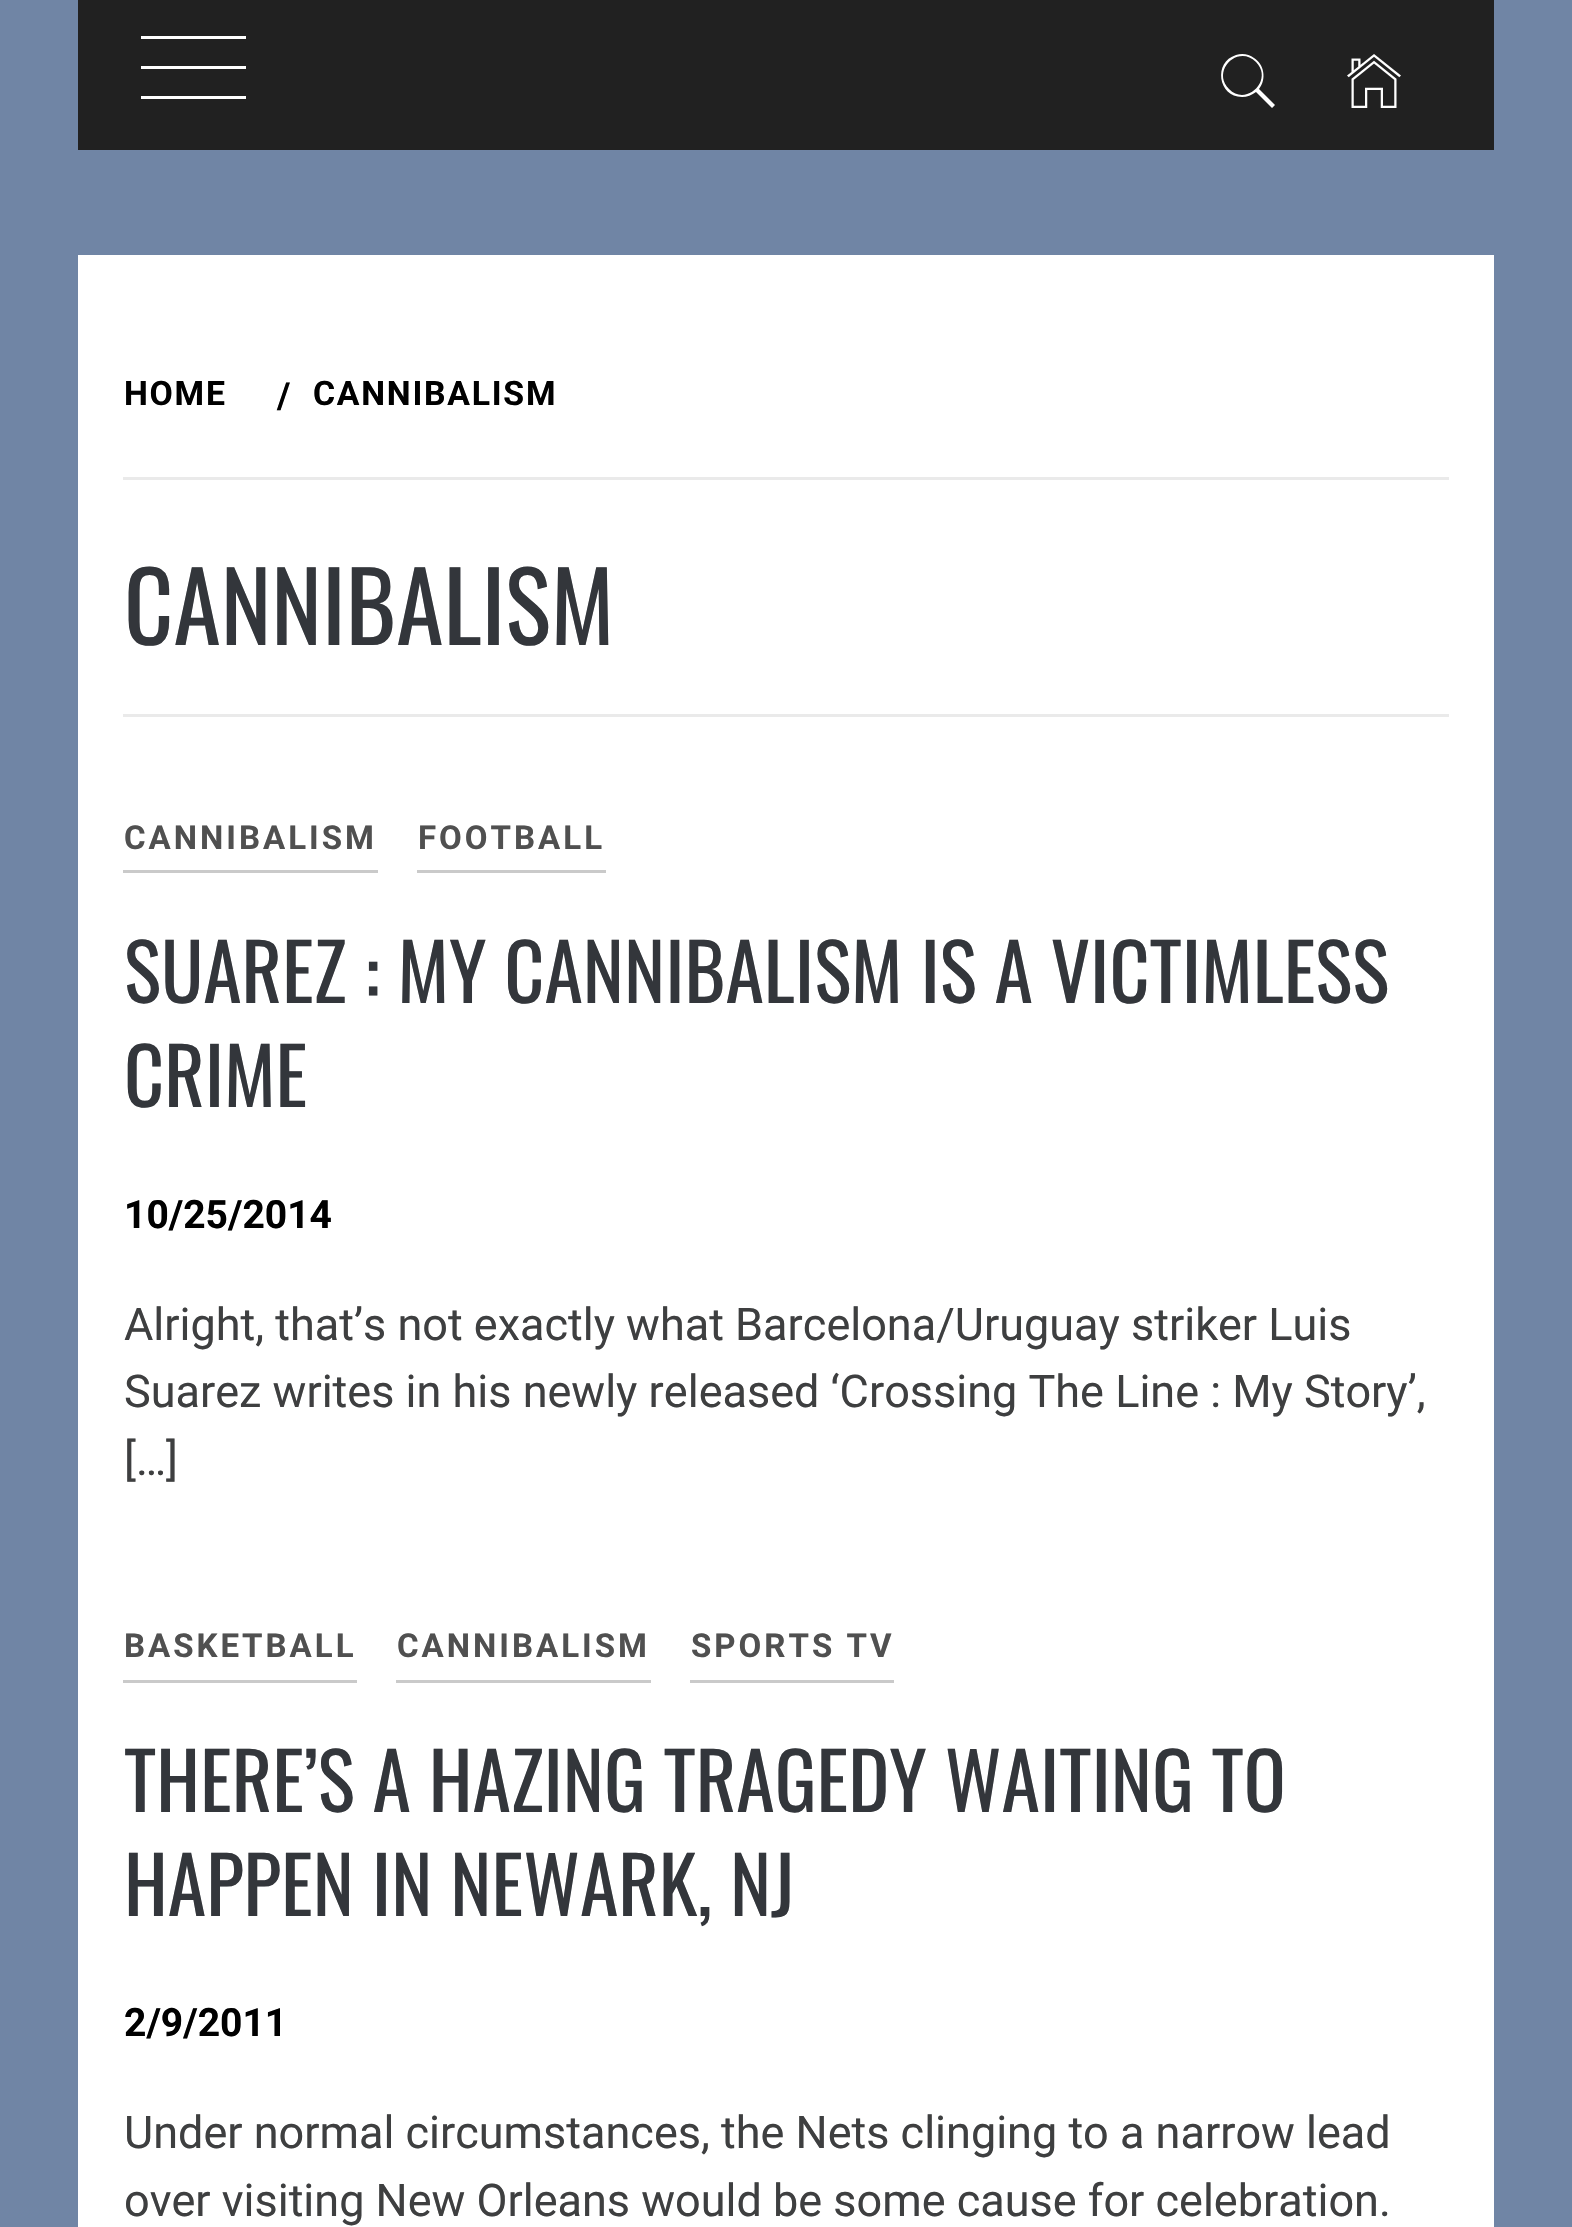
static SkFont makeFont(const char* family, int weight, float size, bool italic = false) {
  SkFontStyle style(weight, SkFontStyle::kNormal_Width,
    italic ? SkFontStyle::kItalic_Slant : SkFontStyle::kUpright_Slant);
  SkFont result(fontMgr->matchFamilyStyle(family, style), size);
  result.setSubpixel(true);
  return result;
}

static void text(SkCanvas* c, const char* s, float x, float y, const SkFont& font, SkColor color) {
  SkPaint ink(SkColor4f::FromColor(color));
  ink.setAntiAlias(true);
  c->drawString(s, x, y, font, ink);
}

static void spacedText(SkCanvas* c, const char* s, float x, float y, const SkFont& font, const SkPaint& ink, float letter, float word) {
  std::vector<SkGlyphID> glyphs(font.countText(s, strlen(s), SkTextEncoding::kUTF8));
  std::vector<float> xs(glyphs.size());
  font.textToGlyphs(s, strlen(s), SkTextEncoding::kUTF8, glyphs);
  font.getXPos(glyphs, xs, x);
  float extra = 0;
  for (size_t i = 0; i < glyphs.size(); i++) {
    xs[i] += extra;
    extra += letter + word * (glyphs[i] == font.unicharToGlyph(' '));
  }
  c->drawTextBlob(SkTextBlob::MakeFromPosHGlyphs(glyphs, xs, y, font), 0, 0, ink);
}

static void box(SkCanvas* c, float l, float t, float r, float b, SkColor color) {
  SkPaint ink(SkColor4f::FromColor(color));
  ink.setAntiAlias(true);
  c->drawRect(SkRect::MakeLTRB(l, t, r, b), ink);
}

static void picture(SkCanvas* c, const char* path, float l, float t, float r, float b) {
  auto image = SkImages::DeferredFromEncodedData(SkData::MakeFromFileName(path));
  c->drawImageRect(image, SkRect::MakeLTRB(l, t, r, b), SkSamplingOptions());
}

void draw(SkCanvas* c) {
  SkPaint paint;
  paint.setAntiAlias(true);
  c->clear(0xff7085a5);
  box(c, 78, 0, 1494, 150, 0xff212121);
  box(c, 141, 36, 246, 39, 0xffffffff);
  box(c, 141, 66, 246, 69, 0xffffffff);
  box(c, 141, 96, 246, 99, 0xffffffff);
  paint.setColor(0xffffffff);
  c->drawPath(SkPathBuilder().moveTo(1275, 105).lineTo(1272, 108).lineTo(1256, 92).cubicTo(1252, 95, 1247, 97, 1242, 97).cubicTo(1218, 97, 1213, 62, 1236, 55).cubicTo(1242, 53, 1249, 54, 1254, 58).cubicTo(1264, 64, 1267, 79, 1259, 89).close().moveTo(1229, 89).cubicTo(1246, 107, 1274, 80, 1256, 62).cubicTo(1238, 44, 1211, 71, 1229, 89).close().detach(), paint);
  picture(c, "img_01.png", 1347, 54, 1401, 108);
  box(c, 78, 255, 1494, 2227, 0xffffffff);
  box(c, 123, 714, 1449, 717, 0xffeaeaea);
  box(c, 123, 477, 1449, 480, 0xffeaeaea);
  SkFont face1 = makeFont("Roboto", 700, 33.75f);
  paint.setColor(0xff000000);
  spacedText(c, "HOME", 124, 405, face1, paint, 1.75f, 0);
  SkFont face2 = makeFont("Roboto", 700, 36);
  spacedText(c, "/", 277, 408, face2, paint, 1.75f, 0);
  spacedText(c, "CANNIBALISM", 313, 405, face1, paint, 1.75f, 0);
  SkFont face3 = makeFont("Oswald", 400, 96);
  text(c, "CANNIBALISM", 124, 645, face3, 0xff33363b);
  box(c, 123, 870, 378, 873, 0xffcacaca);
  SkFont face4 = makeFont("Roboto", 700, 33);
  paint.setColor(0xff505050);
  spacedText(c, "CANNIBALISM", 124, 849, face4, paint, 3, 0);
  box(c, 417, 870, 606, 873, 0xffcacaca);
  spacedText(c, "FOOTBALL", 418, 849, face4, paint, 3, 0);
  SkFont face5 = makeFont("Oswald", 400, 78);
  text(c, "SUAREZ : MY CANNIBALISM IS A VICTIMLESS", 124, 1003, face5, 0xff33363b);
  text(c, "CRIME", 124, 1107, face5, 0xff33363b);
  SkFont face6 = makeFont("Roboto", 700, 39);
  text(c, "10/25/2014", 124, 1228, face6, 0xff000000);
  SkFont face7 = makeFont("Roboto", 400, 45);
  text(c, "Alright, that’s not exactly what Barcelona/Uruguay striker Luis", 124, 1340, face7, 0xff3e3f40);
  text(c, "Suarez writes in his newly released ‘Crossing The Line : My Story’,", 124, 1407, face7, 0xff3e3f40);
  text(c, "[…]", 124, 1475, face7, 0xff3e3f40);
  box(c, 123, 1680, 357, 1683, 0xffcacaca);
  spacedText(c, "BASKETBALL", 124, 1657, face4, paint, 3, 0);
  box(c, 396, 1680, 651, 1683, 0xffcacaca);
  spacedText(c, "CANNIBALISM", 397, 1657, face4, paint, 3, 0);
  box(c, 690, 1680, 894, 1683, 0xffcacaca);
  spacedText(c, "SPORTS TV", 691, 1657, face4, paint, 3, 0);
  text(c, "THERE’S A HAZING TRAGEDY WAITING TO", 124, 1812, face5, 0xff33363b);
  text(c, "HAPPEN IN NEWARK, NJ", 124, 1916, face5, 0xff33363b);
  text(c, "2/9/2011", 124, 2036, face6, 0xff000000);
  text(c, "Under normal circumstances, the Nets clinging to a narrow lead", 124, 2148, face7, 0xff3e3f40);
  text(c, "over visiting New Orleans would be some cause for celebration.", 124, 2216, face7, 0xff3e3f40);
}
